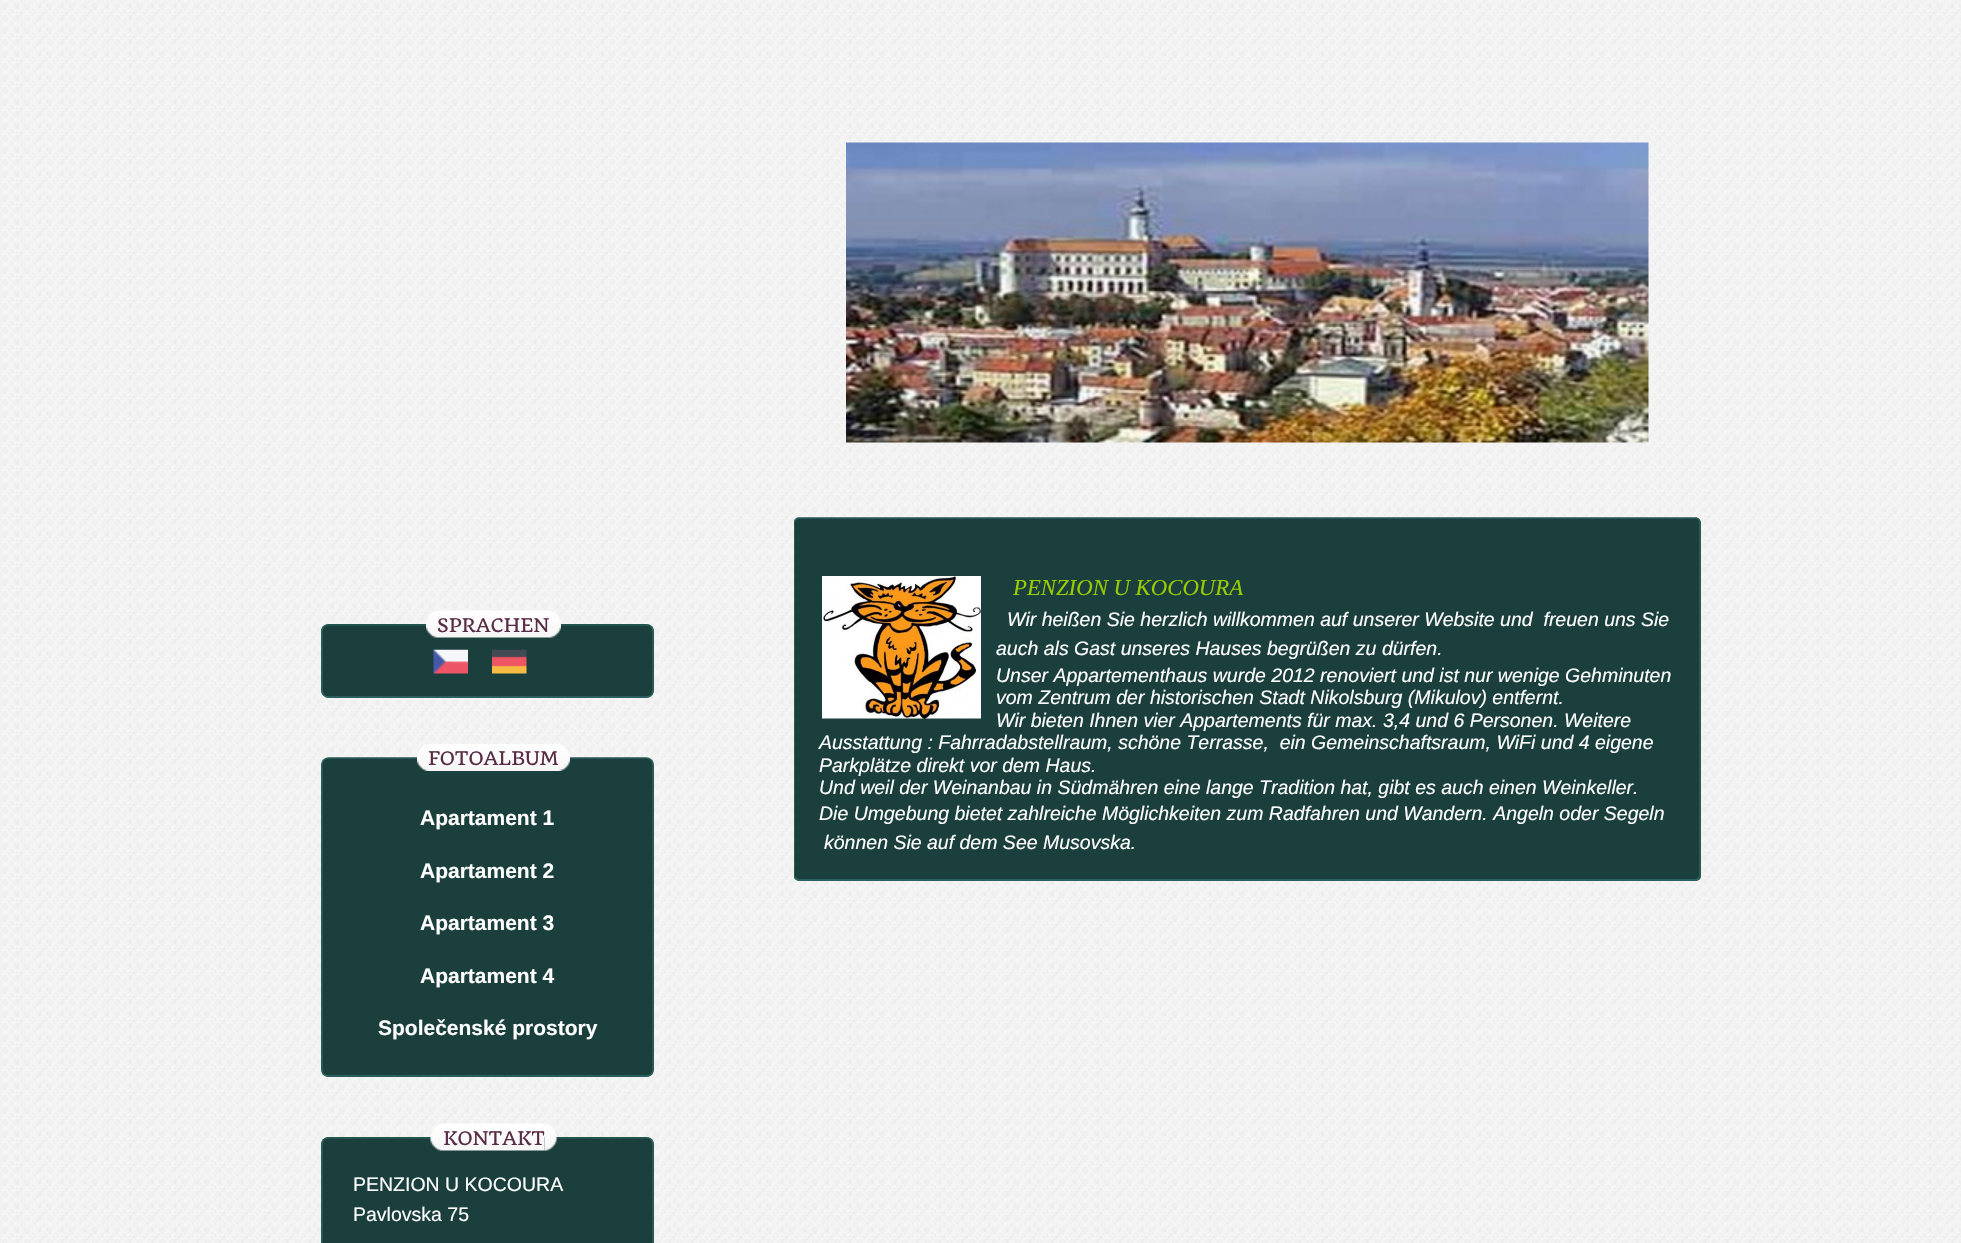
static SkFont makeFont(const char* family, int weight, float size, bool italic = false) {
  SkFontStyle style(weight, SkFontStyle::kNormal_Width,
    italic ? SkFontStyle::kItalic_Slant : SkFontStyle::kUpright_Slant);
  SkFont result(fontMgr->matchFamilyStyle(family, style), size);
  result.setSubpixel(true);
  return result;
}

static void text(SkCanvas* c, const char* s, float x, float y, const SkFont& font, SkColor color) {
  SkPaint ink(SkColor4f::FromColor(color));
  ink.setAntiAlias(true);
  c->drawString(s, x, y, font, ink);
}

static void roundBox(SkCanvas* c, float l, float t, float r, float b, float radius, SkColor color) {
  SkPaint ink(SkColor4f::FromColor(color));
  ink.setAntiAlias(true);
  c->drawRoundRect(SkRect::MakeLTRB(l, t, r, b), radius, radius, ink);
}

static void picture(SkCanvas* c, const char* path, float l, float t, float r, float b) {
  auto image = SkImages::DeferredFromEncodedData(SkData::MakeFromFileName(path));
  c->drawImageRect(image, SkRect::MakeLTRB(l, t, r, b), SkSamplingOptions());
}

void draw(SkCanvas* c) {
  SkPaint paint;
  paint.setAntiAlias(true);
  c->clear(0xfff2f2f2);
  picture(c, "img_01.png", 2, 0, 1961, 1243);
  roundBox(c, 321, 624, 654, 698, 8, 0xff1b3f3c);
  paint.setStyle(SkPaint::kStroke_Style);
  paint.setStrokeWidth(1.5f);
  paint.setColor(0xff255b56);
  c->drawPath(SkPathBuilder().moveTo(323.5f, 626.5f).cubicTo(325, 625.5f, 326.5f, 625, 328.5f, 625).lineTo(646.5f, 625).cubicTo(648.5f, 625, 650, 625.5f, 651.5f, 626.5f).detach(), paint);
  paint.setColor(0xff2a635d);
  c->drawPath(SkPathBuilder().moveTo(651.5f, 626.5f).cubicTo(652.5f, 628, 653, 629.5f, 653, 631.5f).lineTo(653, 690).cubicTo(653, 692, 652.5f, 693.5f, 651.5f, 695).detach(), paint);
  paint.setColor(0xff2a6b66);
  c->drawPath(SkPathBuilder().moveTo(651.5f, 695).cubicTo(650, 696, 648.5f, 697, 646.5f, 697).lineTo(328.5f, 697).cubicTo(326.5f, 697, 325, 696, 323.5f, 695).detach(), paint);
  paint.setColor(0xff2a635d);
  c->drawPath(SkPathBuilder().moveTo(323.5f, 695).cubicTo(322.5f, 693.5f, 322, 692, 322, 690).lineTo(322, 631.5f).cubicTo(322, 629.5f, 322.5f, 628, 323.5f, 626.5f).detach(), paint);
  picture(c, "img_02.png", 426, 610, 549, 638);
  SkFont face1 = makeFont("Quando", 400, 21);
  text(c, "SPRACHEN", 437, 632, face1, 0xff592c46);
  picture(c, "img_03.png", 549, 610, 561, 638);
  picture(c, "img_04.png", 433, 649, 468, 674);
  picture(c, "img_05.png", 492, 649, 527, 674);
  roundBox(c, 321, 758, 654, 1077, 8, 0xff1b3f3c);
  paint.setColor(0xff255b56);
  c->drawPath(SkPathBuilder().moveTo(323.5f, 760).cubicTo(325, 759, 326.5f, 758, 328.5f, 758).lineTo(646.5f, 758).cubicTo(648.5f, 758, 650, 759, 651.5f, 760).detach(), paint);
  paint.setColor(0xff2a635d);
  c->drawPath(SkPathBuilder().moveTo(651.5f, 760).cubicTo(652.5f, 761.5f, 653, 763, 653, 765).lineTo(653, 1069.5f).cubicTo(653, 1071.5f, 652.5f, 1073, 651.5f, 1074.5f).detach(), paint);
  paint.setColor(0xff2a6b66);
  c->drawPath(SkPathBuilder().moveTo(651.5f, 1074.5f).cubicTo(650, 1075.5f, 648.5f, 1076, 646.5f, 1076).lineTo(328.5f, 1076).cubicTo(326.5f, 1076, 325, 1075.5f, 323.5f, 1074.5f).detach(), paint);
  paint.setColor(0xff2a635d);
  c->drawPath(SkPathBuilder().moveTo(323.5f, 1074.5f).cubicTo(322.5f, 1073, 322, 1071.5f, 322, 1069.5f).lineTo(322, 765).cubicTo(322, 763, 322.5f, 761.5f, 323.5f, 760).detach(), paint);
  picture(c, "img_06.png", 417, 744, 558, 771);
  text(c, "FOTOALBUM", 428, 765, face1, 0xff592c46);
  picture(c, "img_07.png", 558, 744, 570, 771);
  SkFont face2 = makeFont("Liberation Sans", 700, 21);
  text(c, "Apartament 1", 420, 825, face2, 0xffffffff);
  text(c, "Apartament 2", 420, 878, face2, 0xffffffff);
  text(c, "Apartament 3", 420, 930, face2, 0xffffffff);
  text(c, "Apartament 4", 420, 983, face2, 0xffffffff);
  text(c, "Společenské prostory", 378, 1035, face2, 0xffffffff);
  roundBox(c, 321, 1137, 654, 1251, 8, 0xff1b3f3c);
  paint.setColor(0xff255b56);
  c->drawPath(SkPathBuilder().moveTo(323.5f, 1139.5f).cubicTo(325, 1138.5f, 326.5f, 1138, 328.5f, 1138).lineTo(646.5f, 1138).cubicTo(648.5f, 1138, 650, 1138.5f, 651.5f, 1139.5f).detach(), paint);
  paint.setColor(0xff2a635d);
  c->drawPath(SkPathBuilder().moveTo(651.5f, 1139.5f).cubicTo(652.5f, 1141, 653, 1142.5f, 653, 1144.5f).lineTo(653, 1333.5f).cubicTo(653, 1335.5f, 652.5f, 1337, 651.5f, 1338.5f).detach(), paint);
  c->drawPath(SkPathBuilder().moveTo(323.5f, 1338.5f).cubicTo(322.5f, 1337, 322, 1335.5f, 322, 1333.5f).lineTo(322, 1144.5f).cubicTo(322, 1142.5f, 322.5f, 1141, 323.5f, 1139.5f).detach(), paint);
  picture(c, "img_08.png", 430, 1123, 545, 1151);
  text(c, "KONTAKT", 443, 1145, face1, 0xff592c46);
  picture(c, "img_09.png", 544, 1123, 557, 1151);
  SkFont face3 = makeFont("Liberation Sans", 400, 19.5f);
  text(c, "PENZION U KOCOURA", 353, 1191, face3, 0xffffffff);
  text(c, "Pavlovska 75", 353, 1221, face3, 0xffffffff);
  picture(c, "img_10.png", 846, 142, 1649, 443);
  roundBox(c, 794, 518, 1701, 881, 5, 0xff1b3f3c);
  paint.setColor(0xff255b56);
  c->drawPath(SkPathBuilder().moveTo(795.5f, 519.5f).lineTo(798, 518).lineTo(1696.5f, 518).lineTo(1699, 519.5f).detach(), paint);
  paint.setColor(0xff2a635d);
  c->drawPath(SkPathBuilder().moveTo(1699, 519.5f).lineTo(1700, 522).lineTo(1700, 876).lineTo(1699, 878.5f).detach(), paint);
  paint.setColor(0xff2a6b66);
  c->drawPath(SkPathBuilder().moveTo(1699, 878.5f).lineTo(1696.5f, 880).lineTo(798, 880).lineTo(795.5f, 878.5f).detach(), paint);
  c->save();
  c->clipRect(SkRect::MakeLTRB(794, 30, 1701, 941));
  paint.setColor(0xff2a635d);
  c->drawPath(SkPathBuilder().moveTo(795.5f, 878.5f).lineTo(794, 876).lineTo(794, 522).lineTo(795.5f, 519.5f).detach(), paint);
  c->restore();
  picture(c, "img_11.png", 822, 576, 981, 719);
  SkFont face4 = makeFont("Liberation Serif", 400, 22.75f, true);
  text(c, "PENZION U KOCOURA", 1013, 595, face4, 0xff99cc00);
  SkFont face5 = makeFont("Liberation Sans", 400, 19.5f, true);
  text(c, "Wir heißen Sie herzlich willkommen auf unserer Website und  freuen uns Sie", 1007, 626, face5, 0xffffffff);
  text(c, "auch als Gast unseres Hauses begrüßen zu dürfen.", 996, 655, face5, 0xffffffff);
  text(c, "Unser Appartementhaus wurde 2012 renoviert und ist nur wenige Gehminuten", 996, 682, face5, 0xffffffff);
  text(c, "vom Zentrum der historischen Stadt Nikolsburg (Mikulov) entfernt.", 996, 704, face5, 0xffffffff);
  text(c, "Wir bieten Ihnen vier Appartements für max. 3,4 und 6 Personen. Weitere", 996, 727, face5, 0xffffffff);
  text(c, "Ausstattung : Fahrradabstellraum, schöne Terrasse,  ein Gemeinschaftsraum, WiFi und 4 eigene", 819, 749, face5, 0xffffffff);
  text(c, "Parkplätze direkt vor dem Haus.", 819, 772, face5, 0xffffffff);
  text(c, "Und weil der Weinanbau in Südmähren eine lange Tradition hat, gibt es auch einen Weinkeller.", 819, 794, face5, 0xffffffff);
  text(c, "Die Umgebung bietet zahlreiche Möglichkeiten zum Radfahren und Wandern. Angeln oder Segeln", 819, 820, face5, 0xffffffff);
  text(c, "können Sie auf dem See Musovska.", 824, 849, face5, 0xffffffff);
}
